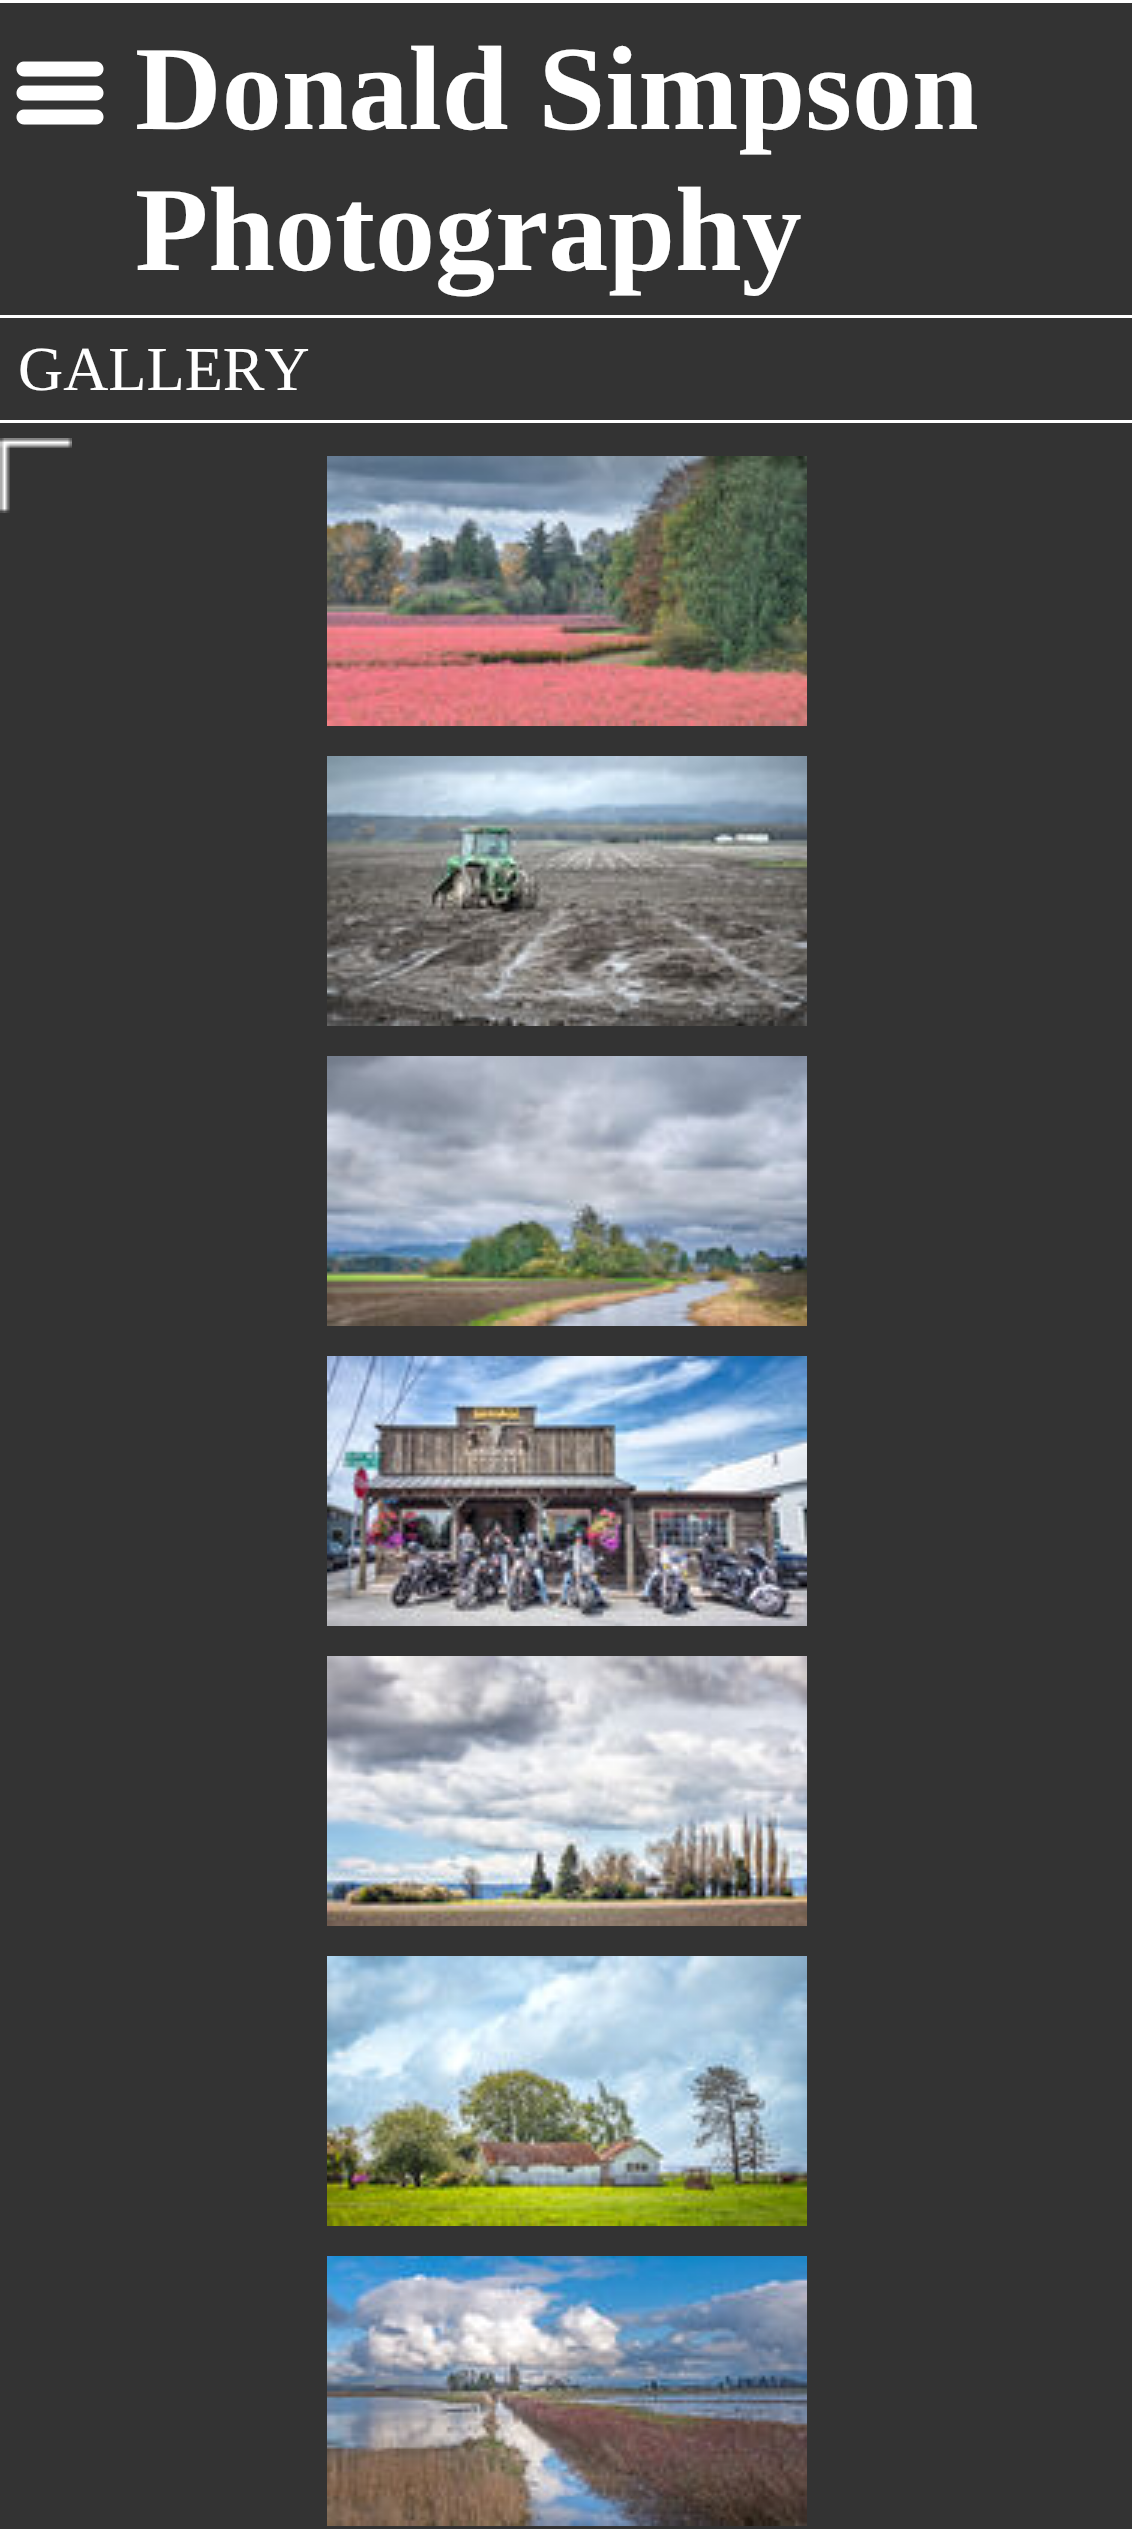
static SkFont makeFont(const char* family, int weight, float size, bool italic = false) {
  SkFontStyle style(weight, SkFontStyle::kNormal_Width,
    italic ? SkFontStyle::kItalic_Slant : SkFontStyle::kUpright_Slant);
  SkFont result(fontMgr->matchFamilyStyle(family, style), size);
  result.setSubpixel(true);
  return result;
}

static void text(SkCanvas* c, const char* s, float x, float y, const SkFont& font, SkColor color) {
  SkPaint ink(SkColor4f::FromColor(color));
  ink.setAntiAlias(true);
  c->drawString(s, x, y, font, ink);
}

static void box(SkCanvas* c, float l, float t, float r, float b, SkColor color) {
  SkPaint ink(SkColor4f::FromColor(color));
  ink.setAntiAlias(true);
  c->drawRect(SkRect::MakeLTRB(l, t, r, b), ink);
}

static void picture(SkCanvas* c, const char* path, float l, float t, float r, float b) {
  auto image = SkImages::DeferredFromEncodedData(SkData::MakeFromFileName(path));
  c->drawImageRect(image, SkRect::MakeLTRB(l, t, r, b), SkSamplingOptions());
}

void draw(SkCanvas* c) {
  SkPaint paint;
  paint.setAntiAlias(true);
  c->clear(0xff333333);
  box(c, 0, 0, 1132, 3, 0xffffffff);
  box(c, 0, 315, 1132, 318, 0xffffffff);
  picture(c, "img_01.png", 16, 61, 104, 125);
  SkFont face1 = makeFont("Liberation Serif", 700, 120);
  text(c, "Donald Simpson", 135, 129, face1, 0xffffffff);
  text(c, "Photography", 135, 270, face1, 0xffffffff);
  box(c, 0, 420, 1132, 423, 0xffffffff);
  SkFont face2 = makeFont("Liberation Serif", 400, 62.5f);
  text(c, "GALLERY", 18, 390, face2, 0xffffffff);
  picture(c, "img_02.png", 0, 438, 72, 513);
  picture(c, "img_03.png", 327, 456, 807, 726);
  picture(c, "img_04.png", 327, 756, 807, 1026);
  picture(c, "img_05.png", 327, 1056, 807, 1326);
  picture(c, "img_06.png", 327, 1356, 807, 1626);
  picture(c, "img_07.png", 327, 1656, 807, 1926);
  picture(c, "img_08.png", 327, 1956, 807, 2226);
  picture(c, "img_09.png", 327, 2256, 807, 2526);
}
